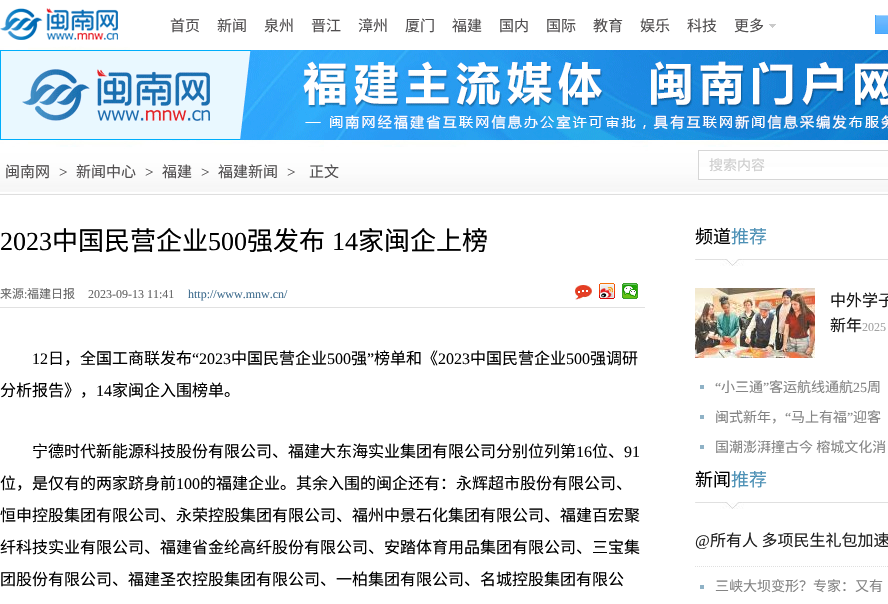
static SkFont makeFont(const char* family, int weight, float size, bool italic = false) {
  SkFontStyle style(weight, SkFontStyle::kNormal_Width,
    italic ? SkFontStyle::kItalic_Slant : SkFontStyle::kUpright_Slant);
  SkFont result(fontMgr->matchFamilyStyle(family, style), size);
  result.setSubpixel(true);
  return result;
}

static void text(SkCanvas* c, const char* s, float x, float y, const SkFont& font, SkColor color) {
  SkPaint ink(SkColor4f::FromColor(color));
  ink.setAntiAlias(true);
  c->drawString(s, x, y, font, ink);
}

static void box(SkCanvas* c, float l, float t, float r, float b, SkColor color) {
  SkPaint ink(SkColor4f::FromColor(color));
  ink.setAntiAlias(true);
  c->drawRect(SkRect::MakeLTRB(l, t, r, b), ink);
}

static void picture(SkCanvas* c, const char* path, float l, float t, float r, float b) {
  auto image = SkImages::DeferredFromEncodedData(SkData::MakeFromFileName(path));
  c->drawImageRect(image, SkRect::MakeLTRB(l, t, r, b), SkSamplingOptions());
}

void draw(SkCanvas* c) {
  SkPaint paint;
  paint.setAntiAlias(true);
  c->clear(0xffffffff);
  picture(c, "img_01.png", 0, 8, 130, 50);
  SkFont face1 = makeFont("Noto Sans CJK SC", 400, 15);
  text(c, "首页", 170, 31, face1, 0xff504e4f);
  text(c, "新闻", 217, 31, face1, 0xff504e4f);
  text(c, "泉州", 264, 31, face1, 0xff504e4f);
  text(c, "晋江", 311, 31, face1, 0xff504e4f);
  text(c, "漳州", 358, 31, face1, 0xff504e4f);
  text(c, "厦门", 405, 31, face1, 0xff504e4f);
  text(c, "福建", 452, 31, face1, 0xff504e4f);
  text(c, "国内", 499, 31, face1, 0xff504e4f);
  text(c, "国际", 546, 31, face1, 0xff504e4f);
  text(c, "教育", 593, 31, face1, 0xff504e4f);
  text(c, "娱乐", 640, 31, face1, 0xff504e4f);
  text(c, "科技", 687, 31, face1, 0xff504e4f);
  picture(c, "img_02.png", 769, 24, 776, 28);
  text(c, "更多", 734, 31, face1, 0xff504e4f);
  picture(c, "img_03.png", 875, 15, 888, 34);
  picture(c, "img_04.png", 0, 50, 888, 140);
  picture(c, "img_05.png", 0, 140, 888, 195);
  text(c, "闽南网", 5, 177, face1, 0xff504e4f);
  SkFont face2 = makeFont("Liberation Serif", 400, 15);
  text(c, ">", 59, 177, face2, 0xff504e4f);
  text(c, "新闻中心", 76, 177, face1, 0xff504e4f);
  text(c, ">", 145, 177, face2, 0xff504e4f);
  text(c, "福建", 162, 177, face1, 0xff504e4f);
  text(c, ">", 201, 177, face2, 0xff504e4f);
  text(c, "福建新闻", 218, 177, face1, 0xff504e4f);
  text(c, ">", 287, 177, face2, 0xff504e4f);
  text(c, "正文", 309, 177, face1, 0xff504e4f);
  paint.setStyle(SkPaint::kStroke_Style);
  paint.setStrokeWidth(1);
  paint.setColor(0xffd6d6d6);
  c->drawRect(SkRect::MakeLTRB(698.5f, 150.5f, 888.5f, 179.5f), paint);
  box(c, 699, 167, 888, 179, 0xffffffff);
  SkFont face3 = makeFont("Noto Sans CJK SC", 400, 14);
  text(c, "搜索内容", 709, 170, face3, 0xffcecece);
  SkFont face4 = makeFont("Liberation Serif", 400, 26);
  text(c, "2023", 0, 250, face4, 0xff000000);
  SkFont face5 = makeFont("Noto Sans CJK SC", 400, 26);
  text(c, "中国民营企业", 52, 250, face5, 0xff000000);
  text(c, "500", 208, 250, face4, 0xff000000);
  text(c, "强发布", 247, 250, face5, 0xff000000);
  text(c, "14", 332, 250, face4, 0xff000000);
  text(c, "家闽企上榜", 358, 250, face5, 0xff000000);
  box(c, 0, 307, 645, 308, 0xffe1e1e1);
  SkFont face6 = makeFont("Noto Sans CJK SC", 400, 12);
  text(c, "来源", 0, 298, face6, 0xff666666);
  SkFont face7 = makeFont("Liberation Serif", 400, 12);
  text(c, ":", 24, 298, face7, 0xff666666);
  text(c, "福建日报", 27, 298, face6, 0xff666666);
  text(c, "2023-09-13 11:41", 88, 298, face7, 0xff666666);
  text(c, "http://www.mnw.cn/", 188, 298, face7, 0xff3d6b8d);
  picture(c, "img_06.png", 575, 285, 592, 300);
  picture(c, "img_07.png", 599, 283, 615, 299);
  picture(c, "img_08.png", 622, 283, 638, 299);
  SkFont face8 = makeFont("Liberation Serif", 400, 16);
  text(c, "12", 32, 364, face8, 0xff000000);
  SkFont face9 = makeFont("Noto Sans CJK SC", 400, 16);
  text(c, "日，全国工商联发布", 48, 364, face9, 0xff000000);
  text(c, "“2023", 192, 364, face8, 0xff000000);
  text(c, "中国民营企业", 231, 364, face9, 0xff000000);
  text(c, "500", 327, 364, face8, 0xff000000);
  text(c, "强", 351, 364, face9, 0xff000000);
  text(c, "”", 367, 364, face8, 0xff000000);
  text(c, "榜单和《", 374, 364, face9, 0xff000000);
  text(c, "2023", 438, 364, face8, 0xff000000);
  text(c, "中国民营企业", 470, 364, face9, 0xff000000);
  text(c, "500", 566, 364, face8, 0xff000000);
  text(c, "强调研", 590, 364, face9, 0xff000000);
  text(c, "分析报告》，", 0, 396, face9, 0xff000000);
  text(c, "14", 96, 396, face8, 0xff000000);
  text(c, "家闽企入围榜单。", 112, 396, face9, 0xff000000);
  text(c, "宁德时代新能源科技股份有限公司、福建大东海实业集团有限公司分别位列第", 32, 457, face9, 0xff000000);
  text(c, "16", 576, 457, face8, 0xff000000);
  text(c, "位、", 592, 457, face9, 0xff000000);
  text(c, "91", 624, 457, face8, 0xff000000);
  text(c, "位，是仅有的两家跻身前", 0, 489, face9, 0xff000000);
  text(c, "100", 176, 489, face8, 0xff000000);
  text(c, "的福建企业。其余入围的闽企还有：永辉超市股份有限公司、", 200, 489, face9, 0xff000000);
  text(c, "恒申控股集团有限公司、永荣控股集团有限公司、福州中景石化集团有限公司、福建百宏聚", 0, 521, face9, 0xff000000);
  text(c, "纤科技实业有限公司、福建省金纶高纤股份有限公司、安踏体育用品集团有限公司、三宝集", 0, 553, face9, 0xff000000);
  text(c, "团股份有限公司、福建圣农控股集团有限公司、一柏集团有限公司、名城控股集团有限公", 0, 585, face9, 0xff000000);
  picture(c, "img_09.png", 695, 259, 888, 266);
  SkFont face10 = makeFont("Noto Sans CJK SC", 400, 18);
  text(c, "频道", 695, 243, face10, 0xff000000);
  text(c, "推荐", 731, 243, face10, 0xff4c90b5);
  picture(c, "img_10.png", 695, 288, 815, 358);
  text(c, "中外学子", 830, 306, face9, 0xff171717);
  text(c, "新年", 830, 331, face9, 0xff171717);
  text(c, "2025", 862, 331, face7, 0xffa2a2a2);
  SkFont face11 = makeFont("Liberation Serif", 400, 14);
  text(c, "“", 715, 392, face11, 0xff848484);
  box(c, 700, 385, 704, 389, 0xff8fb2c6);
  text(c, "小三通", 721, 392, face3, 0xff848484);
  text(c, "”", 763, 392, face11, 0xff848484);
  text(c, "客运航线通航", 769, 392, face3, 0xff848484);
  text(c, "25", 853, 392, face11, 0xff848484);
  text(c, "周", 867, 392, face3, 0xff848484);
  text(c, "闽式新年，", 715, 422, face3, 0xff848484);
  box(c, 700, 415, 704, 419, 0xff8fb2c6);
  text(c, "“", 785, 422, face11, 0xff848484);
  text(c, "马上有福", 791, 422, face3, 0xff848484);
  text(c, "”", 847, 422, face11, 0xff848484);
  text(c, "迎客", 853, 422, face3, 0xff848484);
  text(c, "国潮澎湃撞古今 榕城文化消", 715, 452, face3, 0xff848484);
  box(c, 700, 445, 704, 449, 0xff8fb2c6);
  picture(c, "img_09.png", 695, 502, 888, 509);
  text(c, "新闻", 695, 486, face10, 0xff000000);
  text(c, "推荐", 731, 486, face10, 0xff4c90b5);
  paint.setColor(0xffe0e0e0);
  paint.setPathEffect(SkDashPathEffect::Make({{1, 1}}, 0));
  c->drawPath(SkPathBuilder().moveTo(695, 566.5f).lineTo(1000, 566.5f).detach(), paint);
  paint.setPathEffect(nullptr);
  text(c, "@", 695, 546, face8, 0xff202020);
  text(c, "所有人 多项民生礼包加速", 710, 546, face9, 0xff202020);
  box(c, 700, 585, 704, 589, 0xff8fb2c6);
  text(c, "三峡大坝变形？专家：又有", 715, 591, face3, 0xff848484);
}
